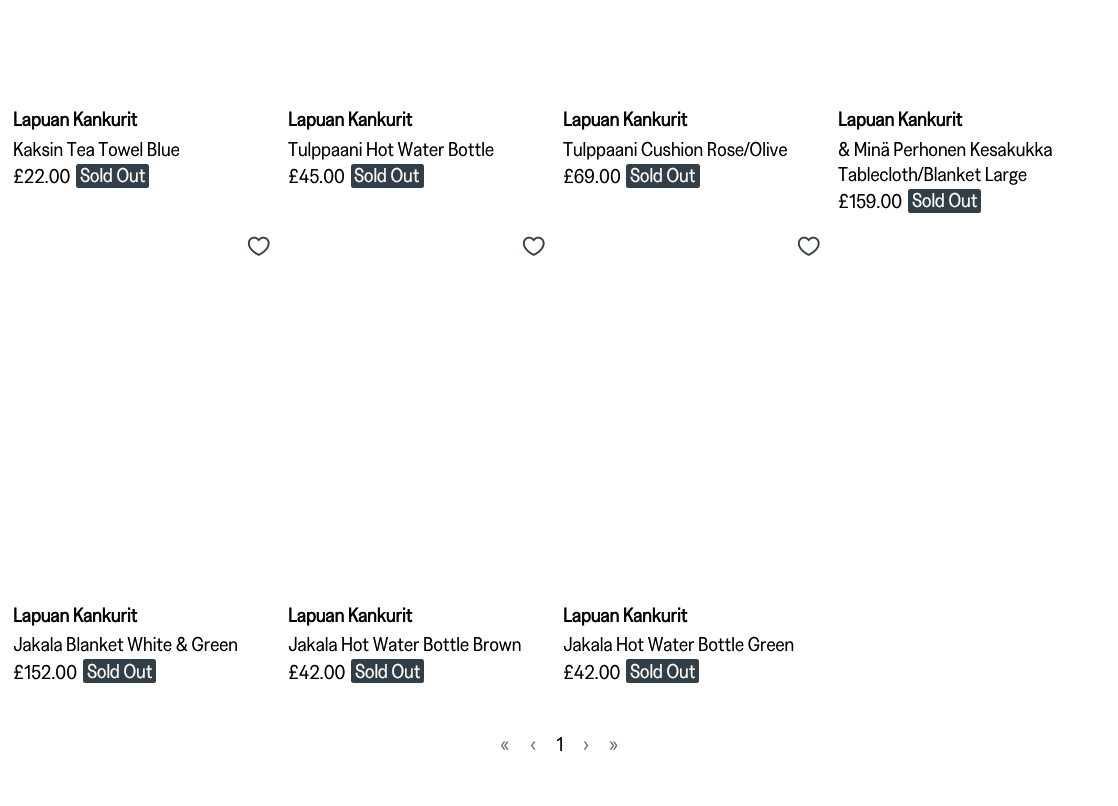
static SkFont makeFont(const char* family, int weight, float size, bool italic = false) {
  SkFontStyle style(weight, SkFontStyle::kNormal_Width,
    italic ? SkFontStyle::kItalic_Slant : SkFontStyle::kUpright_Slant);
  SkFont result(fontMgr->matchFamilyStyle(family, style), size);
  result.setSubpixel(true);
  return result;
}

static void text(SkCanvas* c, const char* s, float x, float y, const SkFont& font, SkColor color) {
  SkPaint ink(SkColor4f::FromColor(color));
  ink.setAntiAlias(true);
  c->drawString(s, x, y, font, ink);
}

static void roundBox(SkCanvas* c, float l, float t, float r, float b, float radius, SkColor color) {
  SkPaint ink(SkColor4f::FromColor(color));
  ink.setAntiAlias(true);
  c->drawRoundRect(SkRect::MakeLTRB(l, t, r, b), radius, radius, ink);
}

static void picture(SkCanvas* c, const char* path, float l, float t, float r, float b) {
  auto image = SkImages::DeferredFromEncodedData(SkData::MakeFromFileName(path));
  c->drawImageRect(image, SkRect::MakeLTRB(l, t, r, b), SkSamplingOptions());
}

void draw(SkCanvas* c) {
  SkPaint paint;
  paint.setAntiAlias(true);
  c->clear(0xffffffff);
  SkFont face1 = makeFont("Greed", 700, 20);
  text(c, "Lapuan Kankurit", 13, 126, face1, 0xff000000);
  SkFont face2 = makeFont("Greed", 400, 20);
  text(c, "Kaksin Tea Towel Blue", 13, 156, face2, 0xff000000);
  text(c, "£22.00", 13, 183, face2, 0xff000000);
  roundBox(c, 76, 164, 149, 188, 2.5f, 0xff333f48);
  text(c, "Sold Out", 80, 182, face2, 0xffffffff);
  text(c, "Lapuan Kankurit", 288, 126, face1, 0xff000000);
  text(c, "Tulppaani Hot Water Bottle", 288, 156, face2, 0xff000000);
  text(c, "£45.00", 288, 183, face2, 0xff000000);
  roundBox(c, 351, 164, 424, 188, 2.5f, 0xff333f48);
  text(c, "Sold Out", 354, 182, face2, 0xffffffff);
  text(c, "Lapuan Kankurit", 563, 126, face1, 0xff000000);
  text(c, "Tulppaani Cushion Rose/Olive", 563, 156, face2, 0xff000000);
  text(c, "£69.00", 563, 183, face2, 0xff000000);
  roundBox(c, 626, 164, 700, 188, 2.5f, 0xff333f48);
  text(c, "Sold Out", 630, 182, face2, 0xffffffff);
  text(c, "Lapuan Kankurit", 838, 126, face1, 0xff000000);
  text(c, "& Minä Perhonen Kesakukka", 838, 156, face2, 0xff000000);
  text(c, "Tablecloth/Blanket Large", 838, 181, face2, 0xff000000);
  text(c, "£159.00", 838, 208, face2, 0xff000000);
  roundBox(c, 908, 189, 981, 213, 2.5f, 0xff333f48);
  text(c, "Sold Out", 912, 207, face2, 0xffffffff);
  picture(c, "img_01.png", 247, 236, 270, 256);
  text(c, "Lapuan Kankurit", 13, 622, face1, 0xff000000);
  text(c, "Jakala Blanket White & Green", 13, 651, face2, 0xff000000);
  text(c, "£152.00", 13, 679, face2, 0xff000000);
  roundBox(c, 83, 659, 156, 683, 2.5f, 0xff333f48);
  text(c, "Sold Out", 87, 678, face2, 0xffffffff);
  picture(c, "img_01.png", 522, 236, 545, 256);
  text(c, "Lapuan Kankurit", 288, 622, face1, 0xff000000);
  text(c, "Jakala Hot Water Bottle Brown", 288, 651, face2, 0xff000000);
  text(c, "£42.00", 288, 679, face2, 0xff000000);
  roundBox(c, 351, 659, 424, 683, 2.5f, 0xff333f48);
  text(c, "Sold Out", 355, 678, face2, 0xffffffff);
  picture(c, "img_01.png", 797, 236, 820, 256);
  text(c, "Lapuan Kankurit", 563, 622, face1, 0xff000000);
  text(c, "Jakala Hot Water Bottle Green", 563, 651, face2, 0xff000000);
  text(c, "£42.00", 563, 679, face2, 0xff000000);
  roundBox(c, 626, 659, 699, 683, 2.5f, 0xff333f48);
  text(c, "Sold Out", 630, 678, face2, 0xffffffff);
  text(c, "«", 500, 751, face2, 0xff666f76);
  text(c, "‹", 530, 751, face2, 0xff666f76);
  text(c, "1", 556, 751, face2, 0xff000000);
  text(c, "›", 583, 751, face2, 0xff666f76);
  text(c, "»", 609, 751, face2, 0xff666f76);
}
